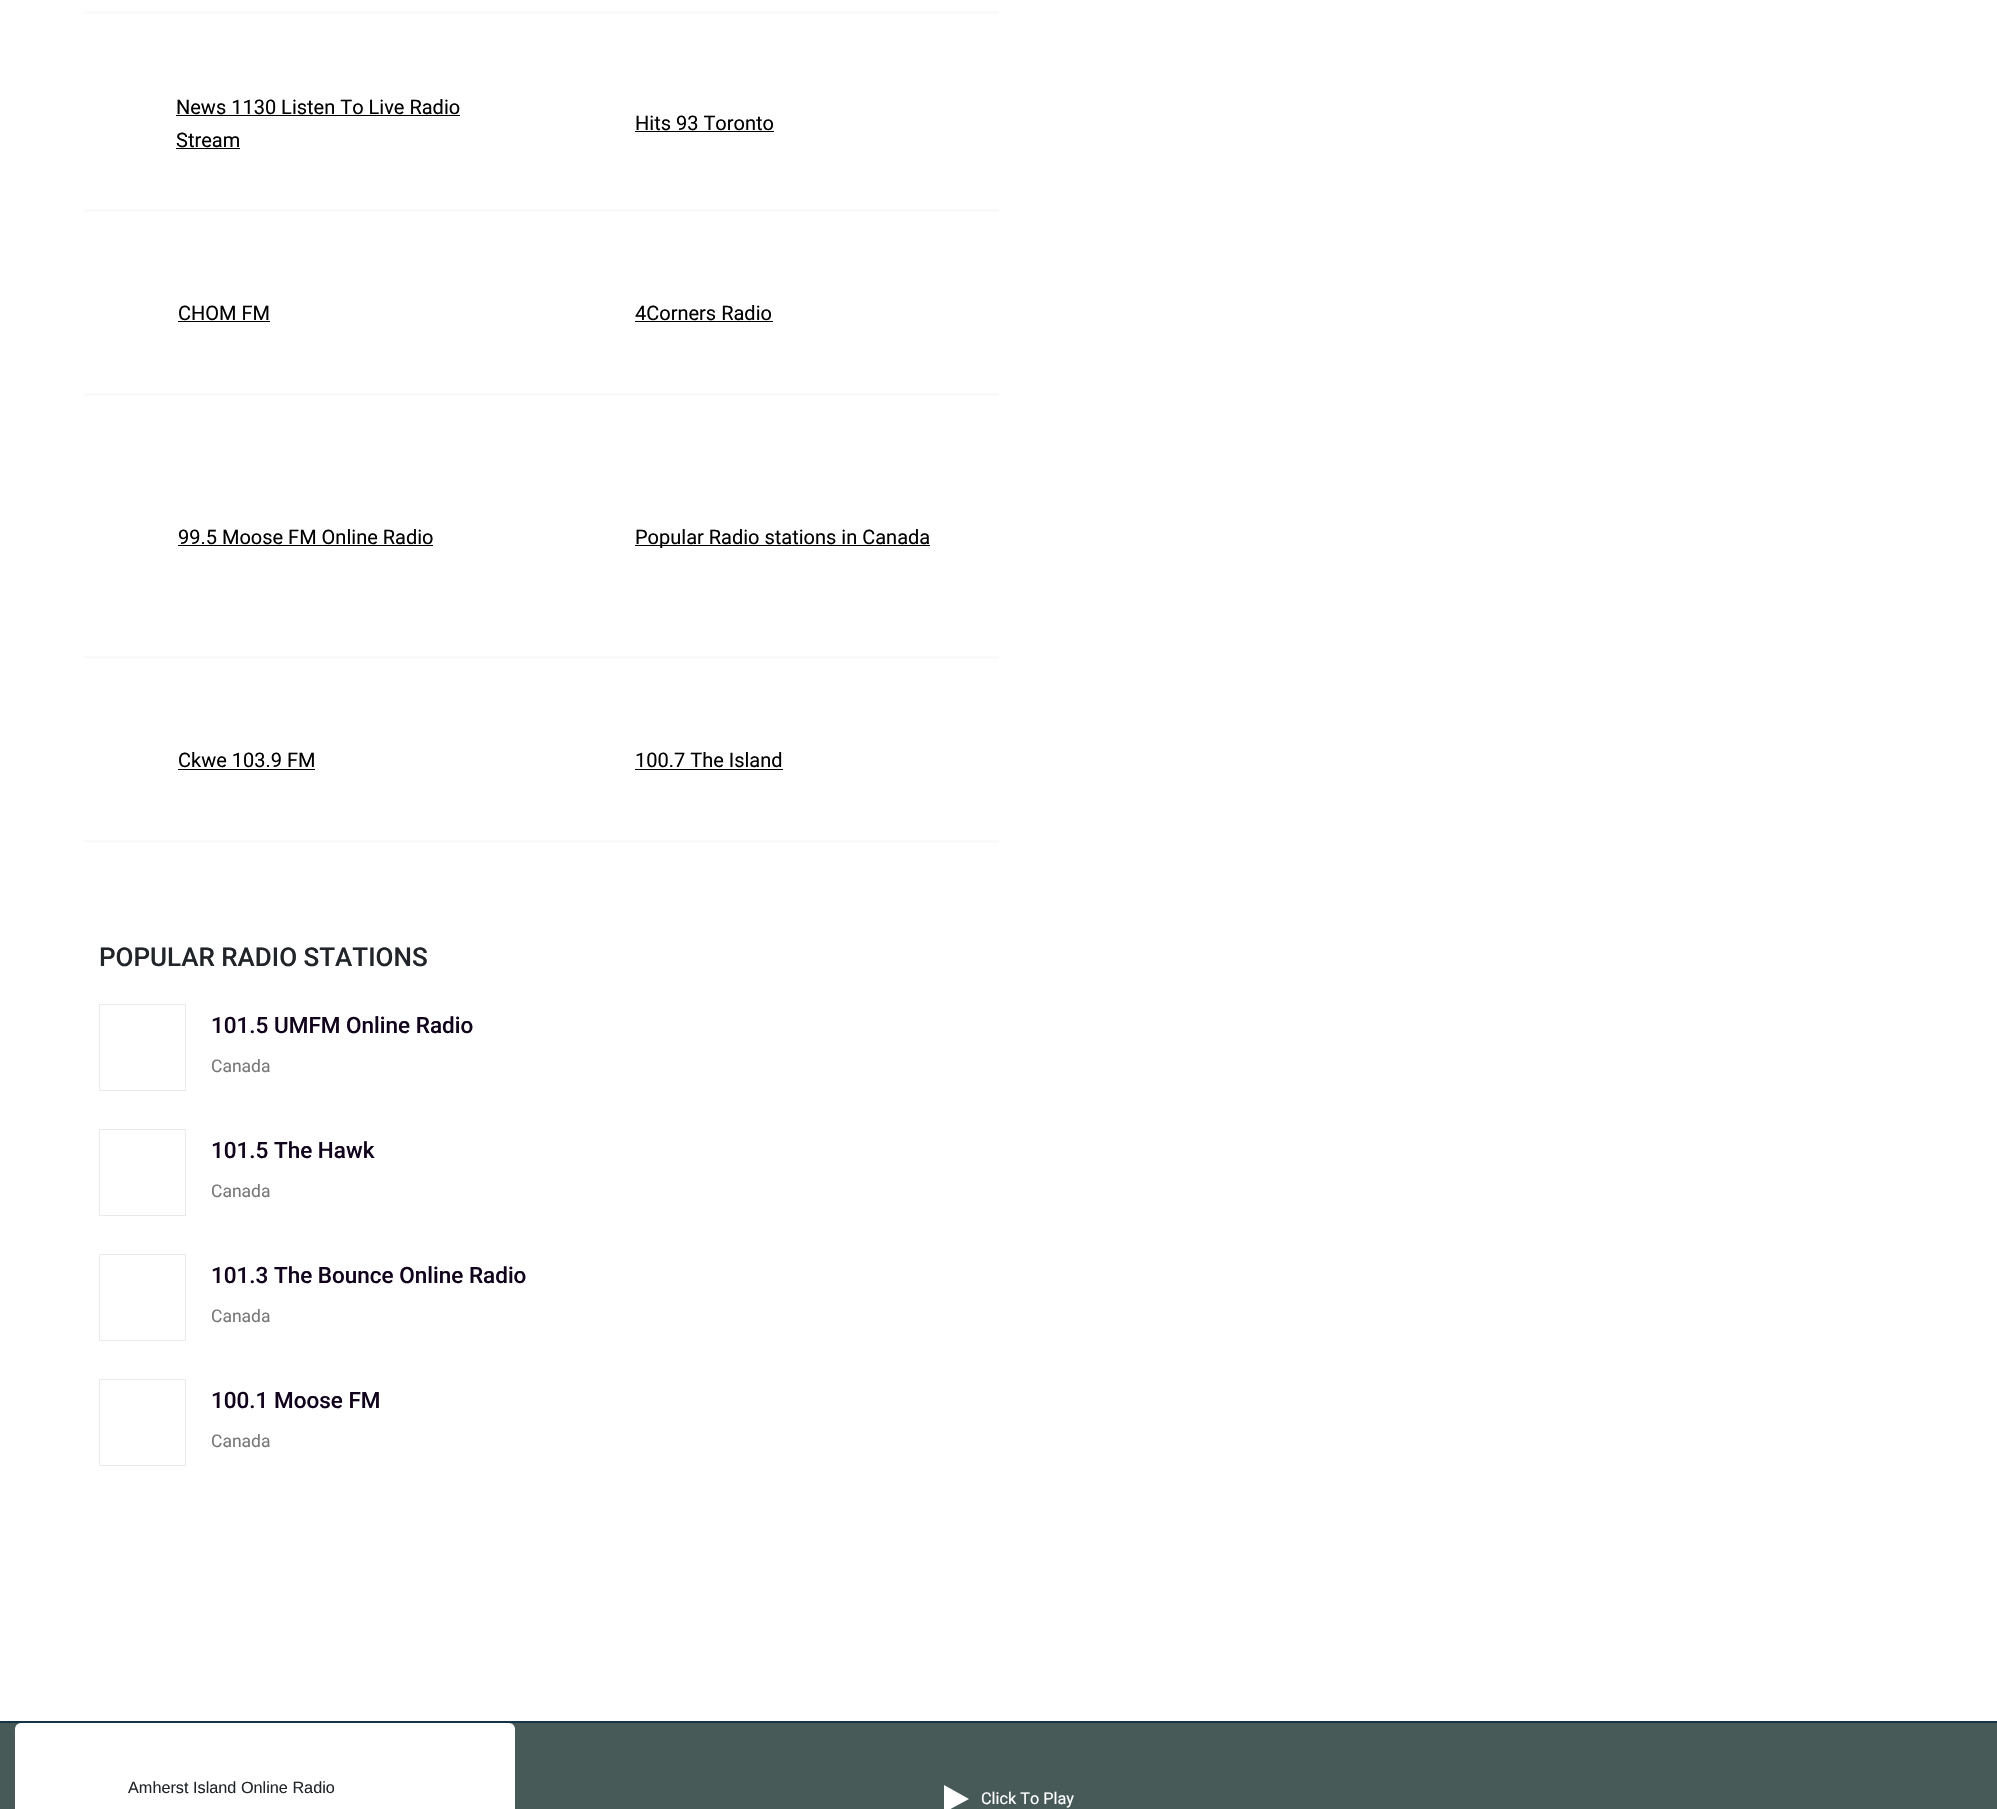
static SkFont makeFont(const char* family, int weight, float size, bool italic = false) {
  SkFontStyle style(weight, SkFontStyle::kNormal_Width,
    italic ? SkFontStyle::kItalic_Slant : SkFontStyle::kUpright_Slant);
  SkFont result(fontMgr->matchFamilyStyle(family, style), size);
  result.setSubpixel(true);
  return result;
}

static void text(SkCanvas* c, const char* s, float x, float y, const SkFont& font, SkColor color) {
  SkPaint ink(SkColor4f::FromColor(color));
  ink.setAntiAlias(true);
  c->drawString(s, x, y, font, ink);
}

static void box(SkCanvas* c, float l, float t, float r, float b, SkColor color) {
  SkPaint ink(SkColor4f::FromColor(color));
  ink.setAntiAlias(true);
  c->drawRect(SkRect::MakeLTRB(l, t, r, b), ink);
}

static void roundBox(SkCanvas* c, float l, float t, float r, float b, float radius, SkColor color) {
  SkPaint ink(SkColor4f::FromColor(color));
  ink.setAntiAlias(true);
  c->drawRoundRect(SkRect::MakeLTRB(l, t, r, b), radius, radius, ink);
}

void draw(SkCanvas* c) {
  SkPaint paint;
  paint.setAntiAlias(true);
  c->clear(0xffffffff);
  box(c, 84, 11, 999, 14, 0xfff9fafc);
  box(c, 84, 209, 999, 212, 0xfff9fafc);
  SkFont face1 = makeFont("Roboto", 400, 20);
  text(c, "News 1130 Listen To Live Radio", 176, 114, face1, 0xff000000);
  box(c, 176, 115, 460, 116, 0xff000000);
  text(c, "Stream", 176, 147, face1, 0xff000000);
  box(c, 176, 148, 240, 149, 0xff000000);
  text(c, "Hits 93 Toronto", 635, 130, face1, 0xff000000);
  box(c, 635, 131, 774, 132, 0xff000000);
  box(c, 84, 393, 999, 396, 0xfff9fafc);
  text(c, "CHOM FM", 178, 320, face1, 0xff000000);
  box(c, 178, 321, 270, 322, 0xff000000);
  text(c, "4Corners Radio", 635, 320, face1, 0xff000000);
  box(c, 635, 321, 773, 322, 0xff000000);
  box(c, 84, 656, 999, 659, 0xfff9fafc);
  text(c, "99.5 Moose FM Online Radio", 178, 544, face1, 0xff000000);
  box(c, 178, 545, 433, 546, 0xff000000);
  box(c, 635, 545, 930, 546, 0xff000000);
  text(c, "Popular Radio stations in Canada", 635, 544, face1, 0xff000000);
  box(c, 84, 840, 999, 843, 0xfff9fafc);
  text(c, "Ckwe 103.9 FM", 178, 767, face1, 0xff000000);
  box(c, 178, 769, 315, 770, 0xff000000);
  text(c, "100.7 The Island", 635, 767, face1, 0xff000000);
  box(c, 635, 769, 783, 770, 0xff000000);
  SkFont face2 = makeFont("Roboto", 500, 26);
  text(c, "POPULAR RADIO STATIONS", 99, 966, face2, 0xff212529);
  paint.setStyle(SkPaint::kStroke_Style);
  paint.setStrokeWidth(1);
  paint.setColor(0xffeaeaea);
  c->drawRect(SkRect::MakeLTRB(99.5f, 1004.5f, 185.5f, 1090.5f), paint);
  SkFont face3 = makeFont("Roboto", 500, 22.5f);
  text(c, "101.5 UMFM Online Radio", 211, 1033, face3, 0xff11031c);
  SkFont face4 = makeFont("Roboto", 400, 17.5f);
  text(c, "Canada", 211, 1072, face4, 0xff777777);
  c->drawRect(SkRect::MakeLTRB(99.5f, 1129.5f, 185.5f, 1215.5f), paint);
  text(c, "101.5 The Hawk", 211, 1158, face3, 0xff11031c);
  text(c, "Canada", 211, 1197, face4, 0xff777777);
  c->drawRect(SkRect::MakeLTRB(99.5f, 1254.5f, 185.5f, 1340.5f), paint);
  text(c, "101.3 The Bounce Online Radio", 211, 1283, face3, 0xff11031c);
  text(c, "Canada", 211, 1322, face4, 0xff777777);
  c->drawRect(SkRect::MakeLTRB(99.5f, 1379.5f, 185.5f, 1465.5f), paint);
  text(c, "100.1 Moose FM", 211, 1408, face3, 0xff11031c);
  text(c, "Canada", 211, 1447, face4, 0xff777777);
  box(c, 0, 1723, 1997, 1809, 0xff475a58);
  roundBox(c, 15, 1723, 515, 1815, 6, 0xffffffff);
  box(c, 19, 1723, 513, 1724, 0x1cffffff);
  SkFont face5 = makeFont("Liberation Sans", 400, 16.25f);
  text(c, "Amherst Island Online Radio", 128, 1793, face5, 0xff212529);
  paint.setStyle(SkPaint::kFill_Style);
  paint.setColor(0xffffffff);
  c->drawPath(SkPathBuilder().moveTo(944, 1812.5f).lineTo(944, 1785).lineTo(969, 1799).close().detach(), paint);
  SkFont face6 = makeFont("Roboto", 400, 16.25f);
  text(c, "Click To Play", 981, 1804, face6, 0xffffffff);
  box(c, 0, 1721, 1997, 1723, 0xff153445);
}
